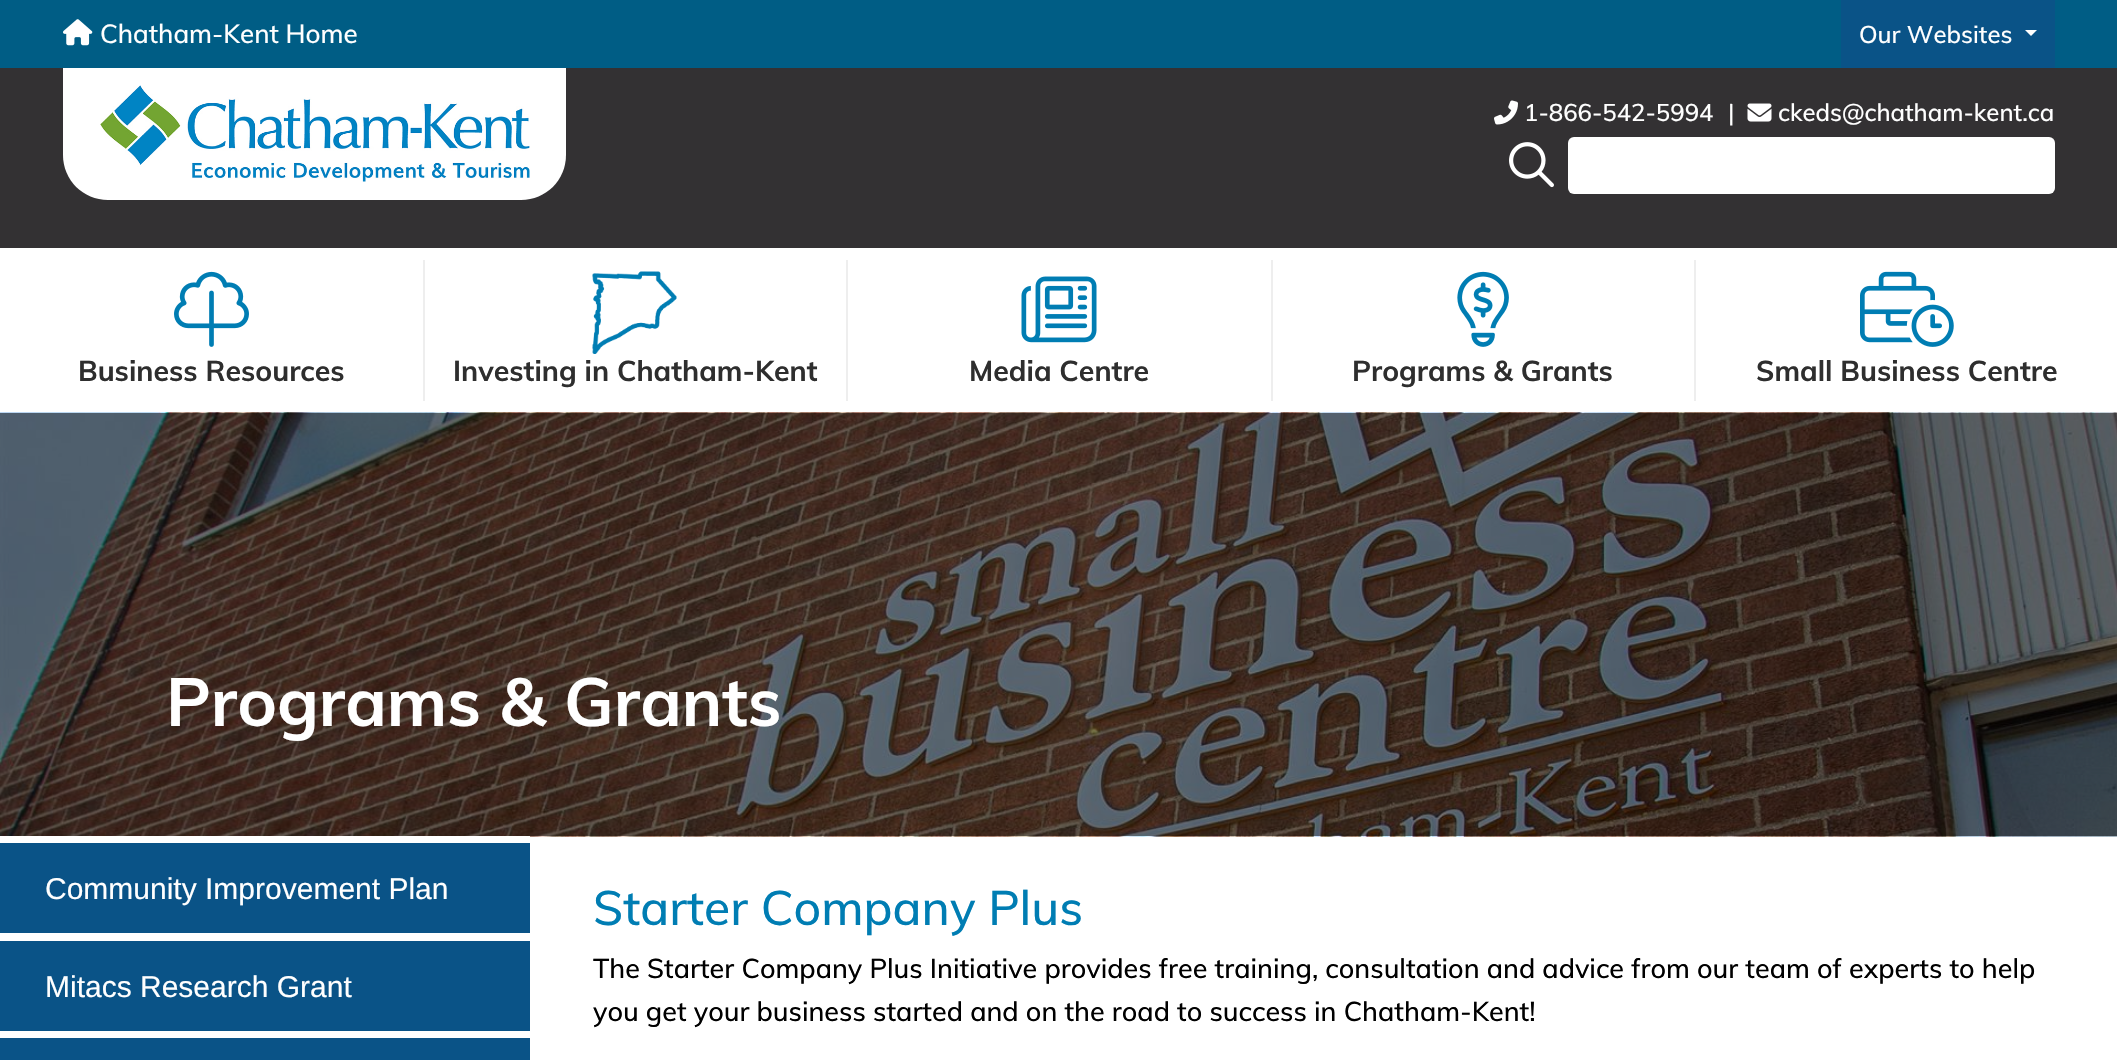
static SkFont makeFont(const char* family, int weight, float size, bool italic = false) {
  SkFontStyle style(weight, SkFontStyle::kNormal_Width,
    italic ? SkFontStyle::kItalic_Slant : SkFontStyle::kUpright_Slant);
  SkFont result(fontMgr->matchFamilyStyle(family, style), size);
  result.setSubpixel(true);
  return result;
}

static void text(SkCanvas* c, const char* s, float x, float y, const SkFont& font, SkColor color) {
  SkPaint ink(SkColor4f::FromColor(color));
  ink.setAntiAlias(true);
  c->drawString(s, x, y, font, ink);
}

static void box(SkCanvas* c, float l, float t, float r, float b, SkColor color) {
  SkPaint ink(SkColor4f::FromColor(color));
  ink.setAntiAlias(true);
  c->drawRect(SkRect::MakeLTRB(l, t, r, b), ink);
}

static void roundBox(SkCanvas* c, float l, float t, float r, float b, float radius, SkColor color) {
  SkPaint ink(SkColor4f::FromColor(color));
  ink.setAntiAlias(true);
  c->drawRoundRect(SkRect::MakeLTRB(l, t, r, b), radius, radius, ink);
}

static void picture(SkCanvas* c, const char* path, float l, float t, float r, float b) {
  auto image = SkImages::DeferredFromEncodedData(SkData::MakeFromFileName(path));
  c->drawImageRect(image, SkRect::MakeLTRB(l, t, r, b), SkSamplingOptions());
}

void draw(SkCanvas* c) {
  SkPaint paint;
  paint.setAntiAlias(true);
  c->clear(0xffffffff);
  box(c, 0, 0, 2117, 68, 0xff005d85);
  picture(c, "img_01.png", 63, 19, 93, 46);
  SkFont face1 = makeFont("Muli", 500, 26);
  text(c, "Chatham-Kent Home", 100, 43, face1, 0xffffffff);
  box(c, 1841, 0, 2055, 68, 0xff0a5387);
  SkFont face2 = makeFont("Muli", 500, 24);
  text(c, "Our Websites", 1859, 43, face2, 0xffffffff);
  paint.setColor(0xffffffff);
  c->drawPath(SkPathBuilder().moveTo(2025, 30).lineTo(2037, 30).lineTo(2031, 36).close().detach(), paint);
  box(c, 0, 68, 2117, 248, 0xff333133);
  c->drawPath(SkPathBuilder().moveTo(63, 68).lineTo(566, 68).lineTo(566, 155).cubicTo(566, 180, 546, 200, 521, 200).lineTo(108, 200).cubicTo(83, 200, 63, 180, 63, 155).close().detach(), paint);
  picture(c, "img_02.png", 100, 85, 530, 182);
  picture(c, "img_03.png", 1494, 100, 1518, 125);
  text(c, "1-866-542-5994", 1524, 121, face2, 0xffffffff);
  text(c, "|", 1728, 121, face2, 0xffffffff);
  picture(c, "img_04.png", 1747, 103, 1772, 122);
  text(c, "ckeds@chatham-kent.ca", 1778, 121, face2, 0xffffffff);
  picture(c, "img_05.png", 1509, 142, 1554, 188);
  roundBox(c, 1568, 137, 2055, 194, 6, 0xffffffff);
  picture(c, "img_06.png", 174, 271, 249, 347);
  SkFont face3 = makeFont("Muli", 700, 28.5f);
  text(c, "Business Resources", 78, 381, face3, 0xff2e2e2e);
  box(c, 423, 260, 425, 401, 0xffeeeeee);
  picture(c, "img_07.png", 592, 271, 677, 354);
  text(c, "Investing in Chatham-Kent", 453, 381, face3, 0xff2e2e2e);
  box(c, 846, 260, 848, 401, 0xffeeeeee);
  picture(c, "img_08.png", 1021, 276, 1097, 343);
  text(c, "Media Centre", 969, 381, face3, 0xff2e2e2e);
  box(c, 1271, 260, 1273, 401, 0xffeeeeee);
  picture(c, "img_09.png", 1457, 271, 1509, 347);
  text(c, "Programs & Grants", 1352, 381, face3, 0xff2e2e2e);
  box(c, 1694, 260, 1696, 401, 0xffeeeeee);
  picture(c, "img_10.png", 1860, 271, 1954, 347);
  text(c, "Small Business Centre", 1756, 381, face3, 0xff2e2e2e);
  picture(c, "img_11.png", 0, 412, 2117, 837);
  SkFont face4 = makeFont("Muli", 700, 67.25f);
  text(c, "Programs & Grants", 166, 726, face4, 0xffffffff);
  box(c, 0, 836, 530, 837, 0xffffffff);
  box(c, 0, 843, 530, 933, 0xff0a5387);
  SkFont face5 = makeFont("Liberation Sans", 400, 30);
  text(c, "Community Improvement Plan", 45, 899, face5, 0xffffffff);
  box(c, 0, 941, 530, 1031, 0xff0a5387);
  text(c, "Mitacs Research Grant", 45, 997, face5, 0xffffffff);
  box(c, 0, 1038, 530, 1060, 0xff0a5387);
  SkFont face6 = makeFont("Muli", 500, 48);
  text(c, "Starter Company Plus", 593, 925, face6, 0xff007db3);
  SkFont face7 = makeFont("Muli", 500, 27);
  text(c, "The Starter Company Plus Initiative provides free training, consultation and advice from our team of experts to help", 593, 978, face7, 0xff000000);
  text(c, "you get your business started and on the road to success in Chatham-Kent!", 593, 1021, face7, 0xff000000);
}
